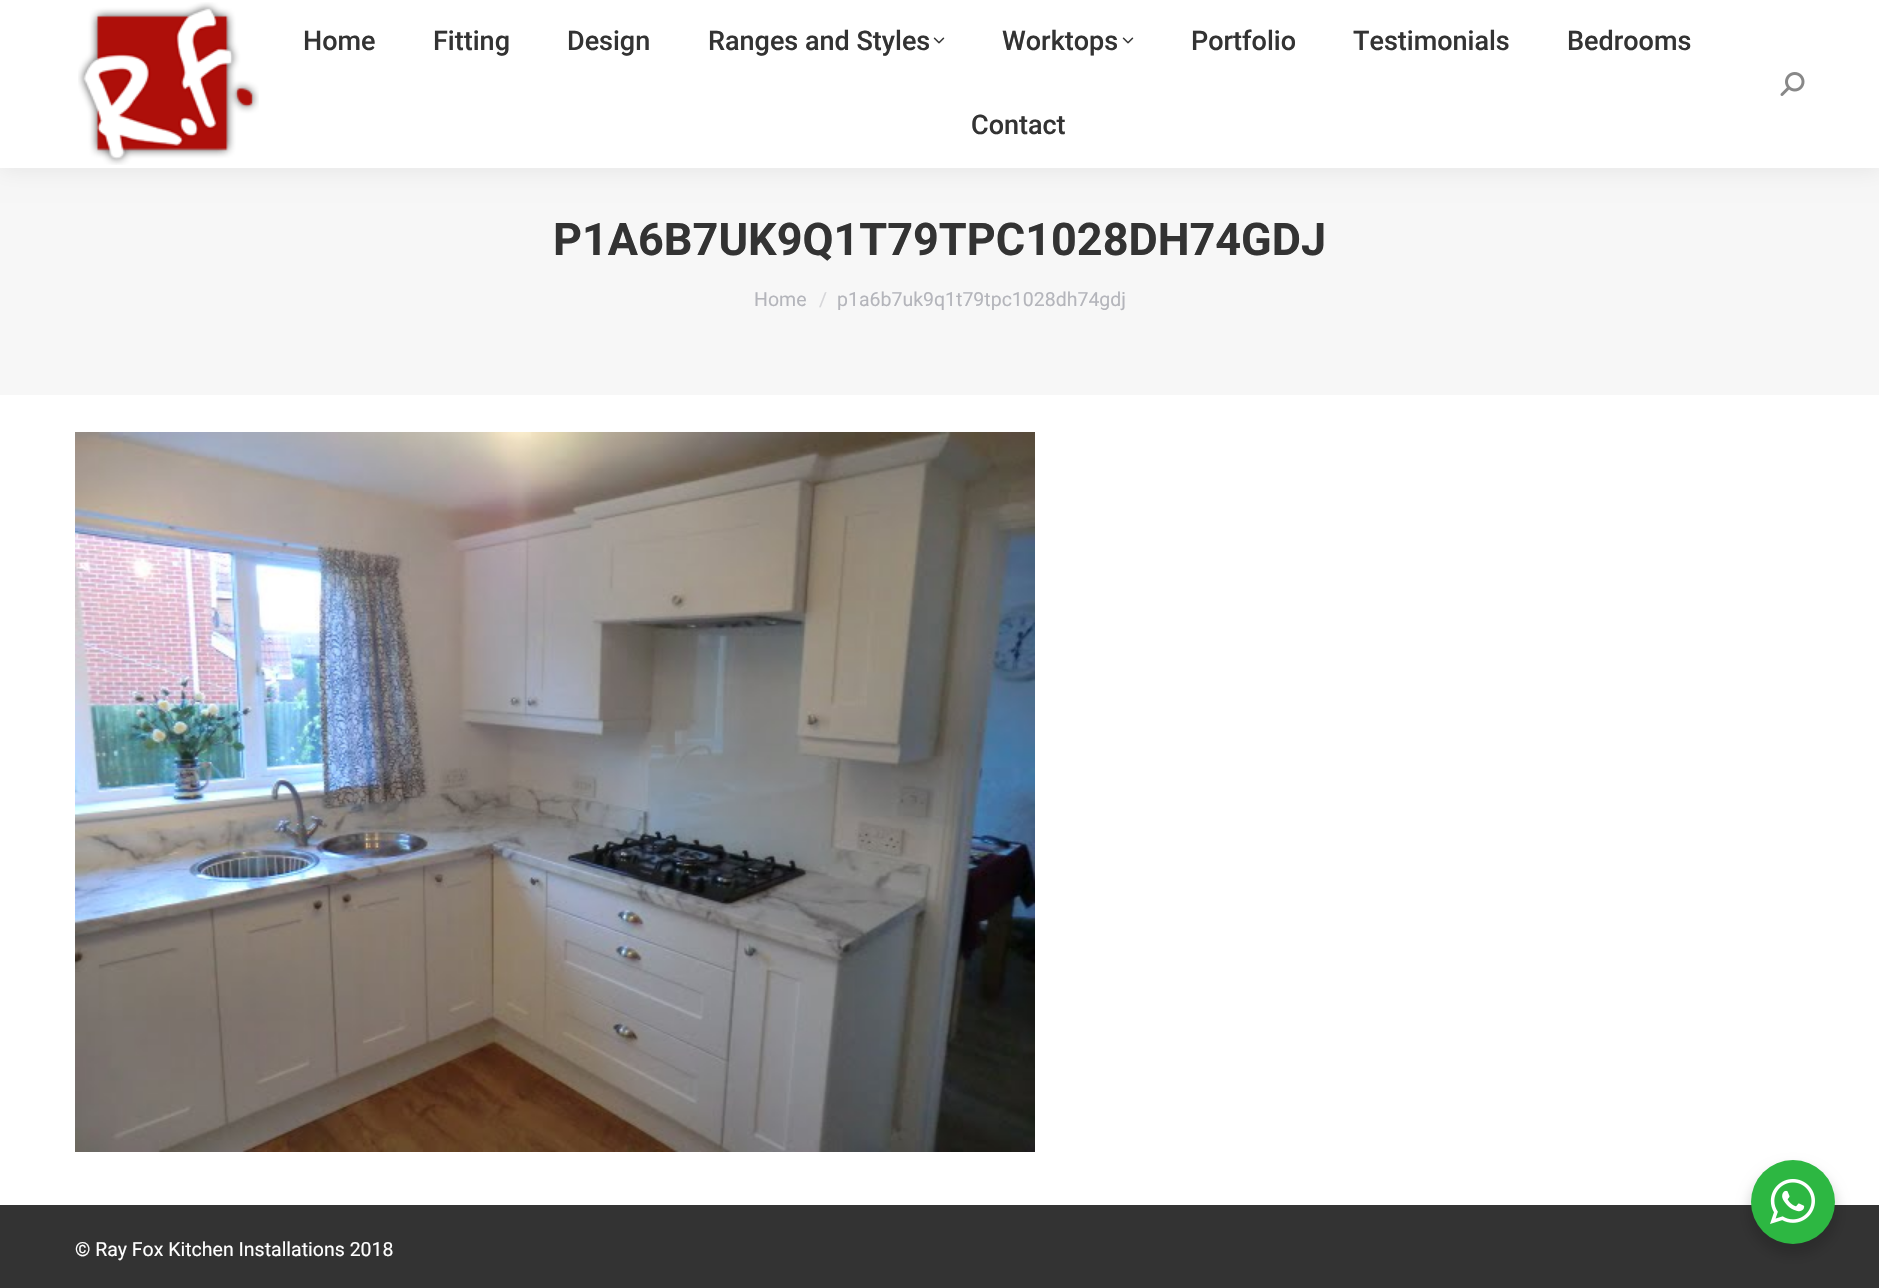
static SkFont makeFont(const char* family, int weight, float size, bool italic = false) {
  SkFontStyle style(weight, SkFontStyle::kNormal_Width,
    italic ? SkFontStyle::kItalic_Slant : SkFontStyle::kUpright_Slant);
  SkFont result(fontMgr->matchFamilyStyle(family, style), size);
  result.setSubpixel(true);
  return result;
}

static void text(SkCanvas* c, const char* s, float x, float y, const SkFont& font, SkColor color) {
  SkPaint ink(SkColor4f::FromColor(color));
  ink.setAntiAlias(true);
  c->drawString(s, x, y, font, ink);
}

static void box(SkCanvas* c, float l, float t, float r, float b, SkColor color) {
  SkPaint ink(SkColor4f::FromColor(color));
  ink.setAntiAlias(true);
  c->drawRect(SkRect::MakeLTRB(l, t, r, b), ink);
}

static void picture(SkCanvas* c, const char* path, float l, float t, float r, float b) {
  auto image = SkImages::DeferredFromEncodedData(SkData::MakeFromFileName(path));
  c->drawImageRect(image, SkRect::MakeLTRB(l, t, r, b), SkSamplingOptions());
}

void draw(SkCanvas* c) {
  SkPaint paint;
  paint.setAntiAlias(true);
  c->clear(0xffffffff);
  box(c, 0, 168, 1879, 395, 0xfff7f7f7);
  paint.setColor(0x12000000);
  paint.setMaskFilter(SkMaskFilter::MakeBlur(kNormal_SkBlurStyle, 11));
  c->drawRect(SkRect::MakeLTRB(-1, -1, 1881, 170), paint);
  paint.setMaskFilter(nullptr);
  box(c, 0, 0, 1879, 168, 0xffffffff);
  picture(c, "img_01.png", 78, 2, 259, 165);
  SkFont face1 = makeFont("Roboto", 500, 27);
  text(c, "Home", 303, 50, face1, 0xff333333);
  text(c, "Fitting", 433, 50, face1, 0xff333333);
  text(c, "Design", 567, 50, face1, 0xff333333);
  text(c, "Ranges and Styles", 708, 50, face1, 0xff333333);
  picture(c, "img_02.png", 933, 37, 945, 44);
  text(c, "Worktops", 1002, 50, face1, 0xff333333);
  picture(c, "img_02.png", 1122, 37, 1134, 44);
  text(c, "Portfolio", 1191, 50, face1, 0xff333333);
  text(c, "Testimonials", 1353, 50, face1, 0xff333333);
  text(c, "Bedrooms", 1567, 50, face1, 0xff333333);
  text(c, "Contact", 971, 134, face1, 0xff333333);
  picture(c, "img_03.png", 1780, 72, 1805, 96);
  SkFont face2 = makeFont("Roboto", 700, 45);
  text(c, "P1A6B7UK9Q1T79TPC1028DH74GDJ", 553, 255, face2, 0xff333333);
  SkFont face3 = makeFont("Roboto", 400, 19.5f);
  text(c, "Home", 754, 306, face3, 0xffb4b5bb);
  text(c, "/", 819, 306, face3, 0xffd6d6d9);
  text(c, "p1a6b7uk9q1t79tpc1028dh74gdj", 837, 306, face3, 0xffb4b5bb);
  picture(c, "img_04.png", 75, 432, 1035, 1152);
  box(c, 0, 1205, 1879, 1288, 0xff333333);
  text(c, "© Ray Fox Kitchen Installations 2018", 75, 1256, face3, 0xffffffff);
  paint.setColor(0x24000000);
  paint.setMaskFilter(SkMaskFilter::MakeBlur(kNormal_SkBlurStyle, 6));
  c->drawRoundRect(SkRect::MakeLTRB(1748, 1166, 1838, 1256), 45, 45, paint);
  paint.setMaskFilter(nullptr);
  paint.setColor(0xff2db742);
  c->drawCircle(1793, 1202, 42, paint);
  picture(c, "img_05.png", 1770, 1179, 1815, 1224);
}
